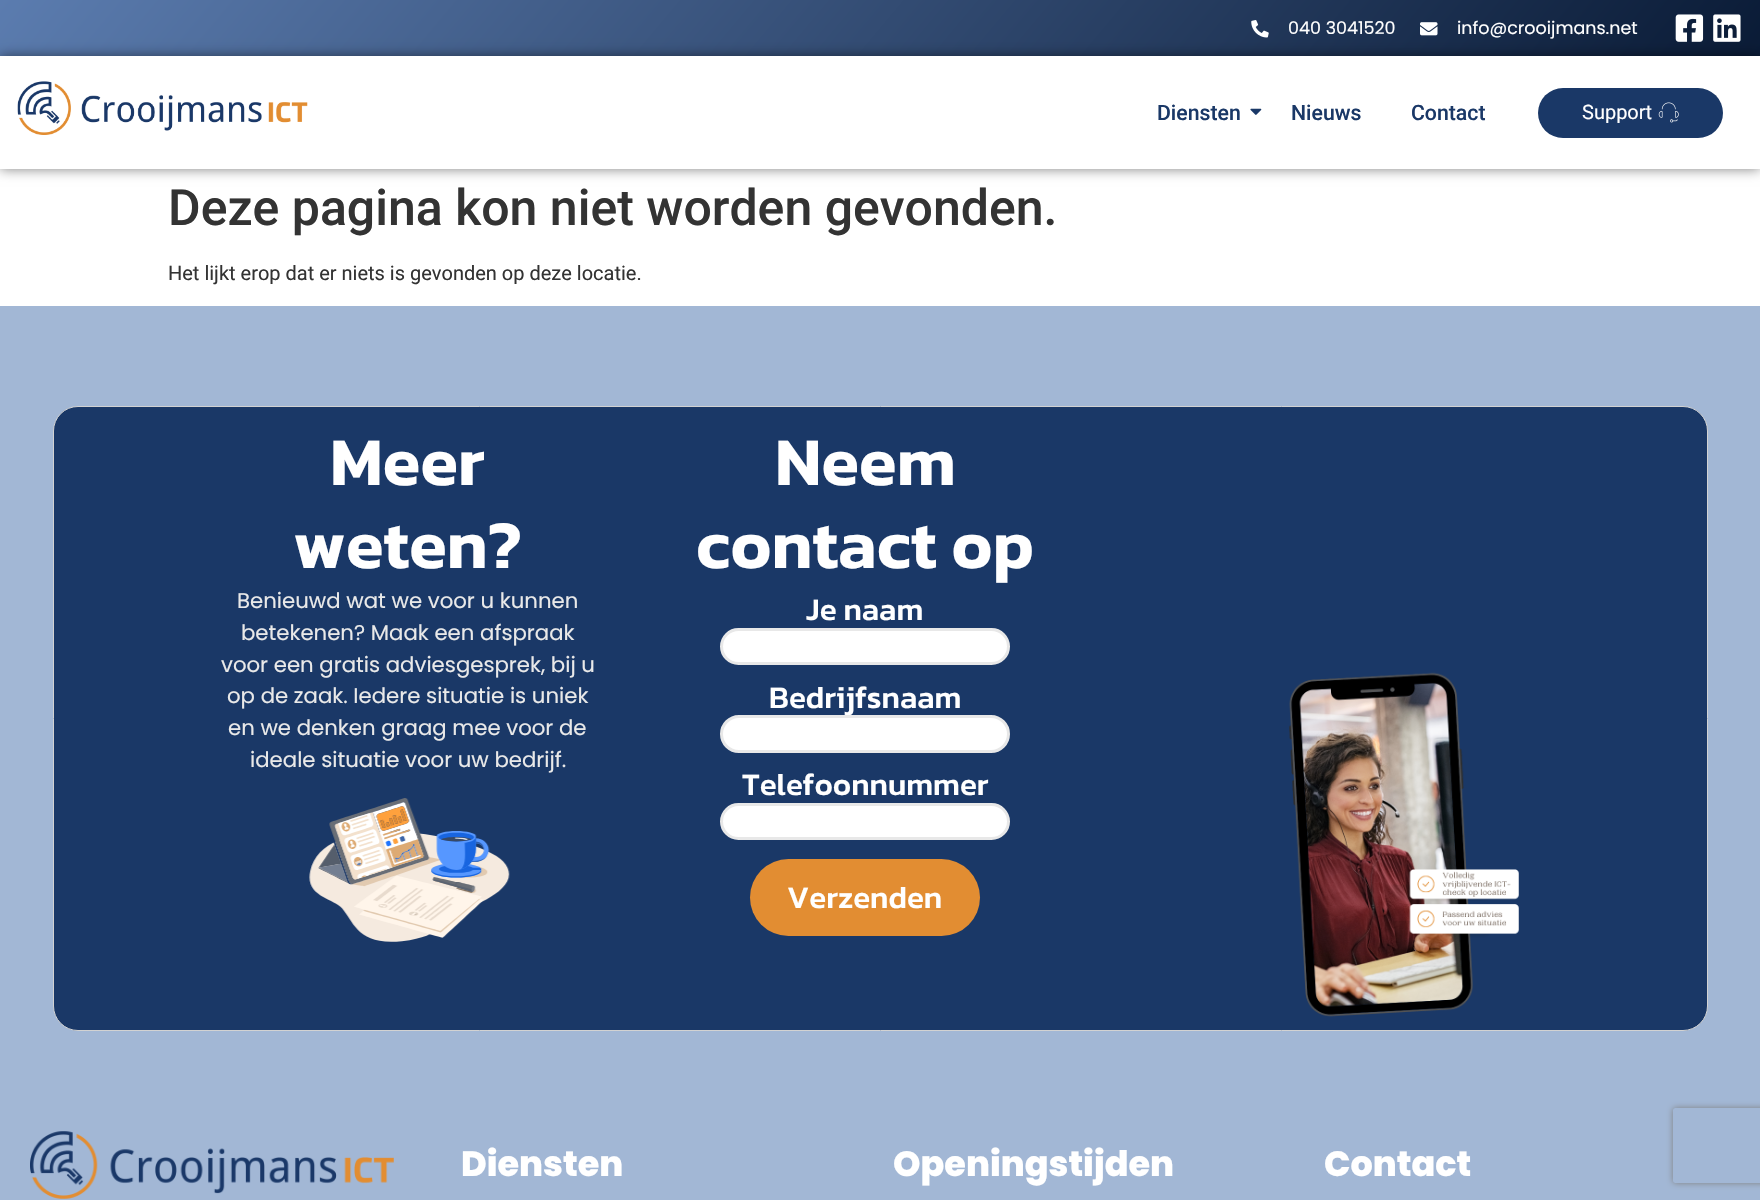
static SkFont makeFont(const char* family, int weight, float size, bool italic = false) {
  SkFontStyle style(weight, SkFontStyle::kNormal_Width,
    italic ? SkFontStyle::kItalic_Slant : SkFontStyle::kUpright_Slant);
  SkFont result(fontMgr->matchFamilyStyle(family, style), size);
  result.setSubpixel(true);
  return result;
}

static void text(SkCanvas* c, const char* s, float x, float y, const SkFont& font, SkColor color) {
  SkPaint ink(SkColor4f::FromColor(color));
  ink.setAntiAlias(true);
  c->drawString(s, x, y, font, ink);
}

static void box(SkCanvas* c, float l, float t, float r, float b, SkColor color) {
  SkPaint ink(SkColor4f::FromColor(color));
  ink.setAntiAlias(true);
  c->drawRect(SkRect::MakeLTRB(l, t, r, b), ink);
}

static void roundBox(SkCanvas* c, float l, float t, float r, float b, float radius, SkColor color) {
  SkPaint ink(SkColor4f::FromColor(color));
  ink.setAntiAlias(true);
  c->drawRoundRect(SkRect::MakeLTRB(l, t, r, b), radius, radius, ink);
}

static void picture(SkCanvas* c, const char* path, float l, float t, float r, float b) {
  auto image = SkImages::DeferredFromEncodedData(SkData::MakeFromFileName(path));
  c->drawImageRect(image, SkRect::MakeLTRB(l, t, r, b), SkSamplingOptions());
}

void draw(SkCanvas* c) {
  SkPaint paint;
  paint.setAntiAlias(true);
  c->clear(0xffffffff);
  {
    const SkColor colors[] = {0xff5b7caf, 0xff0a1b36};
    const float stops[] = {0, 1};
    const SkPoint ends[] = {{350, -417}, {1410, 473}};
    paint.setShader(SkGradientShader::MakeLinear(ends, colors, stops, 2, SkTileMode::kClamp));
    paint.setAlpha(255);
  }
  c->drawRect(SkRect::MakeLTRB(0, 0, 1760, 56), paint);
  picture(c, "img_01.png", 1251, 20, 1269, 38);
  SkFont face1 = makeFont("Poppins", 400, 17.5f);
  text(c, "040 3041520", 1288, 34, face1, 0xffffffff);
  picture(c, "img_02.png", 1420, 22, 1438, 36);
  text(c, "info@crooijmans.net", 1457, 34, face1, 0xffffffff);
  picture(c, "img_03.png", 1675, 14, 1704, 42);
  picture(c, "img_04.png", 1713, 14, 1741, 42);
  c->save();
  c->clipPath(SkPathBuilder(SkPathFillType::kEvenOdd).moveTo(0, 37).lineTo(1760, 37).lineTo(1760, 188).lineTo(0, 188).close().moveTo(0, 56).lineTo(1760, 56).lineTo(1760, 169).lineTo(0, 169).close().detach(), true);
  paint.setShader(nullptr);
  paint.setColor(0x80000000);
  paint.setMaskFilter(SkMaskFilter::MakeBlur(kNormal_SkBlurStyle, 6));
  c->drawRect(SkRect::MakeLTRB(0, 56, 1760, 169), paint);
  paint.setMaskFilter(nullptr);
  c->restore();
  picture(c, "img_05.png", 17, 81, 308, 135);
  SkFont face2 = makeFont("Roboto", 500, 21.25f);
  text(c, "Diensten", 1157, 120, face2, 0xff1a3867);
  picture(c, "img_06.png", 1250, 108, 1262, 115);
  text(c, "Nieuws", 1291, 120, face2, 0xff1a3867);
  text(c, "Contact", 1411, 120, face2, 0xff1a3867);
  roundBox(c, 1538, 88, 1723, 138, 25, 0xff1a3867);
  SkFont face3 = makeFont("Roboto", 400, 20);
  text(c, "Support", 1582, 119, face3, 0xffffffff);
  picture(c, "img_07.png", 1658, 102, 1679, 123);
  SkFont face4 = makeFont("Roboto", 500, 50);
  text(c, "Deze pagina kon niet worden gevonden.", 168, 225, face4, 0xff333333);
  text(c, "Het lijkt erop dat er niets is gevonden op deze locatie.", 168, 280, face3, 0xff333333);
  box(c, 0, 306, 1760, 1200, 0xffa2b7d5);
  paint.setColor(0xff1a3867);
  c->drawRoundRect(SkRect::MakeLTRB(53.5f, 406.5f, 1707.5f, 1030.5f), 24.5f, 24.5f, paint);
  paint.setStyle(SkPaint::kStroke_Style);
  paint.setStrokeWidth(1);
  paint.setColor(0xffd2d2d2);
  c->drawRoundRect(SkRect::MakeLTRB(53.5f, 406.5f, 1707.5f, 1030.5f), 24.5f, 24.5f, paint);
  SkFont face5 = makeFont("Kanit", 600, 68.75f);
  text(c, "Meer", 330, 485, face5, 0xffffffff);
  text(c, "weten?", 293, 568, face5, 0xffffffff);
  SkFont face6 = makeFont("Poppins", 400, 21.25f);
  text(c, "Benieuwd wat we voor u kunnen", 237, 608, face6, 0xffe9e9e9);
  text(c, "betekenen? Maak een afspraak", 241, 640, face6, 0xffe9e9e9);
  text(c, "voor een gratis adviesgesprek, bij u", 221, 672, face6, 0xffe9e9e9);
  text(c, "op de zaak. Iedere situatie is uniek", 227, 703, face6, 0xffe9e9e9);
  text(c, "en we denken graag mee voor de", 228, 735, face6, 0xffe9e9e9);
  text(c, "ideale situatie voor uw bedrijf.", 250, 767, face6, 0xffe9e9e9);
  picture(c, "img_08.png", 309, 798, 510, 942);
  text(c, "Neem", 775, 485, face5, 0xffffffff);
  text(c, "contact op", 696, 568, face5, 0xffffffff);
  SkFont face7 = makeFont("Kanit", 500, 31.25f);
  text(c, "Je naam", 806, 620, face7, 0xffffffff);
  paint.setStyle(SkPaint::kFill_Style);
  paint.setColor(0xffffffff);
  c->drawRoundRect(SkRect::MakeLTRB(721.5f, 629.5f, 1008.5f, 663.5f), 17, 17, paint);
  paint.setStyle(SkPaint::kStroke_Style);
  paint.setStrokeWidth(3);
  paint.setColor(0xffe8e8e8);
  c->drawRoundRect(SkRect::MakeLTRB(721.5f, 629.5f, 1008.5f, 663.5f), 17, 17, paint);
  text(c, "Bedrijfsnaam", 769, 708, face7, 0xffffffff);
  paint.setStyle(SkPaint::kFill_Style);
  paint.setColor(0xffffffff);
  c->drawRoundRect(SkRect::MakeLTRB(721.5f, 716.5f, 1008.5f, 751.5f), 17.5f, 17.5f, paint);
  paint.setStyle(SkPaint::kStroke_Style);
  paint.setColor(0xffe8e8e8);
  c->drawRoundRect(SkRect::MakeLTRB(721.5f, 716.5f, 1008.5f, 751.5f), 17.5f, 17.5f, paint);
  text(c, "Telefoonnummer", 742, 795, face7, 0xffffffff);
  paint.setStyle(SkPaint::kFill_Style);
  paint.setColor(0xffffffff);
  c->drawRoundRect(SkRect::MakeLTRB(721.5f, 804.5f, 1008.5f, 838.5f), 17, 17, paint);
  paint.setStyle(SkPaint::kStroke_Style);
  paint.setColor(0xffe8e8e8);
  c->drawRoundRect(SkRect::MakeLTRB(721.5f, 804.5f, 1008.5f, 838.5f), 17, 17, paint);
  roundBox(c, 750, 859, 980, 936, 38.5f, 0xffe28d32);
  text(c, "Verzenden", 787, 908, face7, 0xffffffff);
  picture(c, "img_09.png", 1289, 672, 1519, 1017);
  picture(c, "img_10.png", 30, 1131, 394, 1199);
  SkFont face8 = makeFont("Poppins", 800, 35);
  text(c, "Diensten", 461, 1176, face8, 0xffffffff);
  text(c, "Openingstijden", 893, 1176, face8, 0xffffffff);
  text(c, "Contact", 1324, 1176, face8, 0xffffffff);
  c->save();
  c->clipPath(SkPathBuilder(SkPathFillType::kEvenOdd).moveTo(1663, 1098).lineTo(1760, 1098).lineTo(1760, 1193).lineTo(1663, 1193).close().moveTo(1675.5f, 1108).lineTo(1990.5f, 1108).cubicTo(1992, 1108, 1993, 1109, 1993, 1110.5f).lineTo(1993, 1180.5f).cubicTo(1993, 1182, 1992, 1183, 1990.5f, 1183).lineTo(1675.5f, 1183).cubicTo(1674, 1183, 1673, 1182, 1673, 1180.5f).lineTo(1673, 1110.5f).cubicTo(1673, 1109, 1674, 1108, 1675.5f, 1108).close().detach(), true);
  paint.setStyle(SkPaint::kFill_Style);
  paint.setColor(0xff808080);
  paint.setMaskFilter(SkMaskFilter::MakeBlur(kNormal_SkBlurStyle, 3));
  c->drawRoundRect(SkRect::MakeLTRB(1673, 1108, 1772, 1183), 2.5f, 2.5f, paint);
  paint.setMaskFilter(nullptr);
  c->restore();
}
